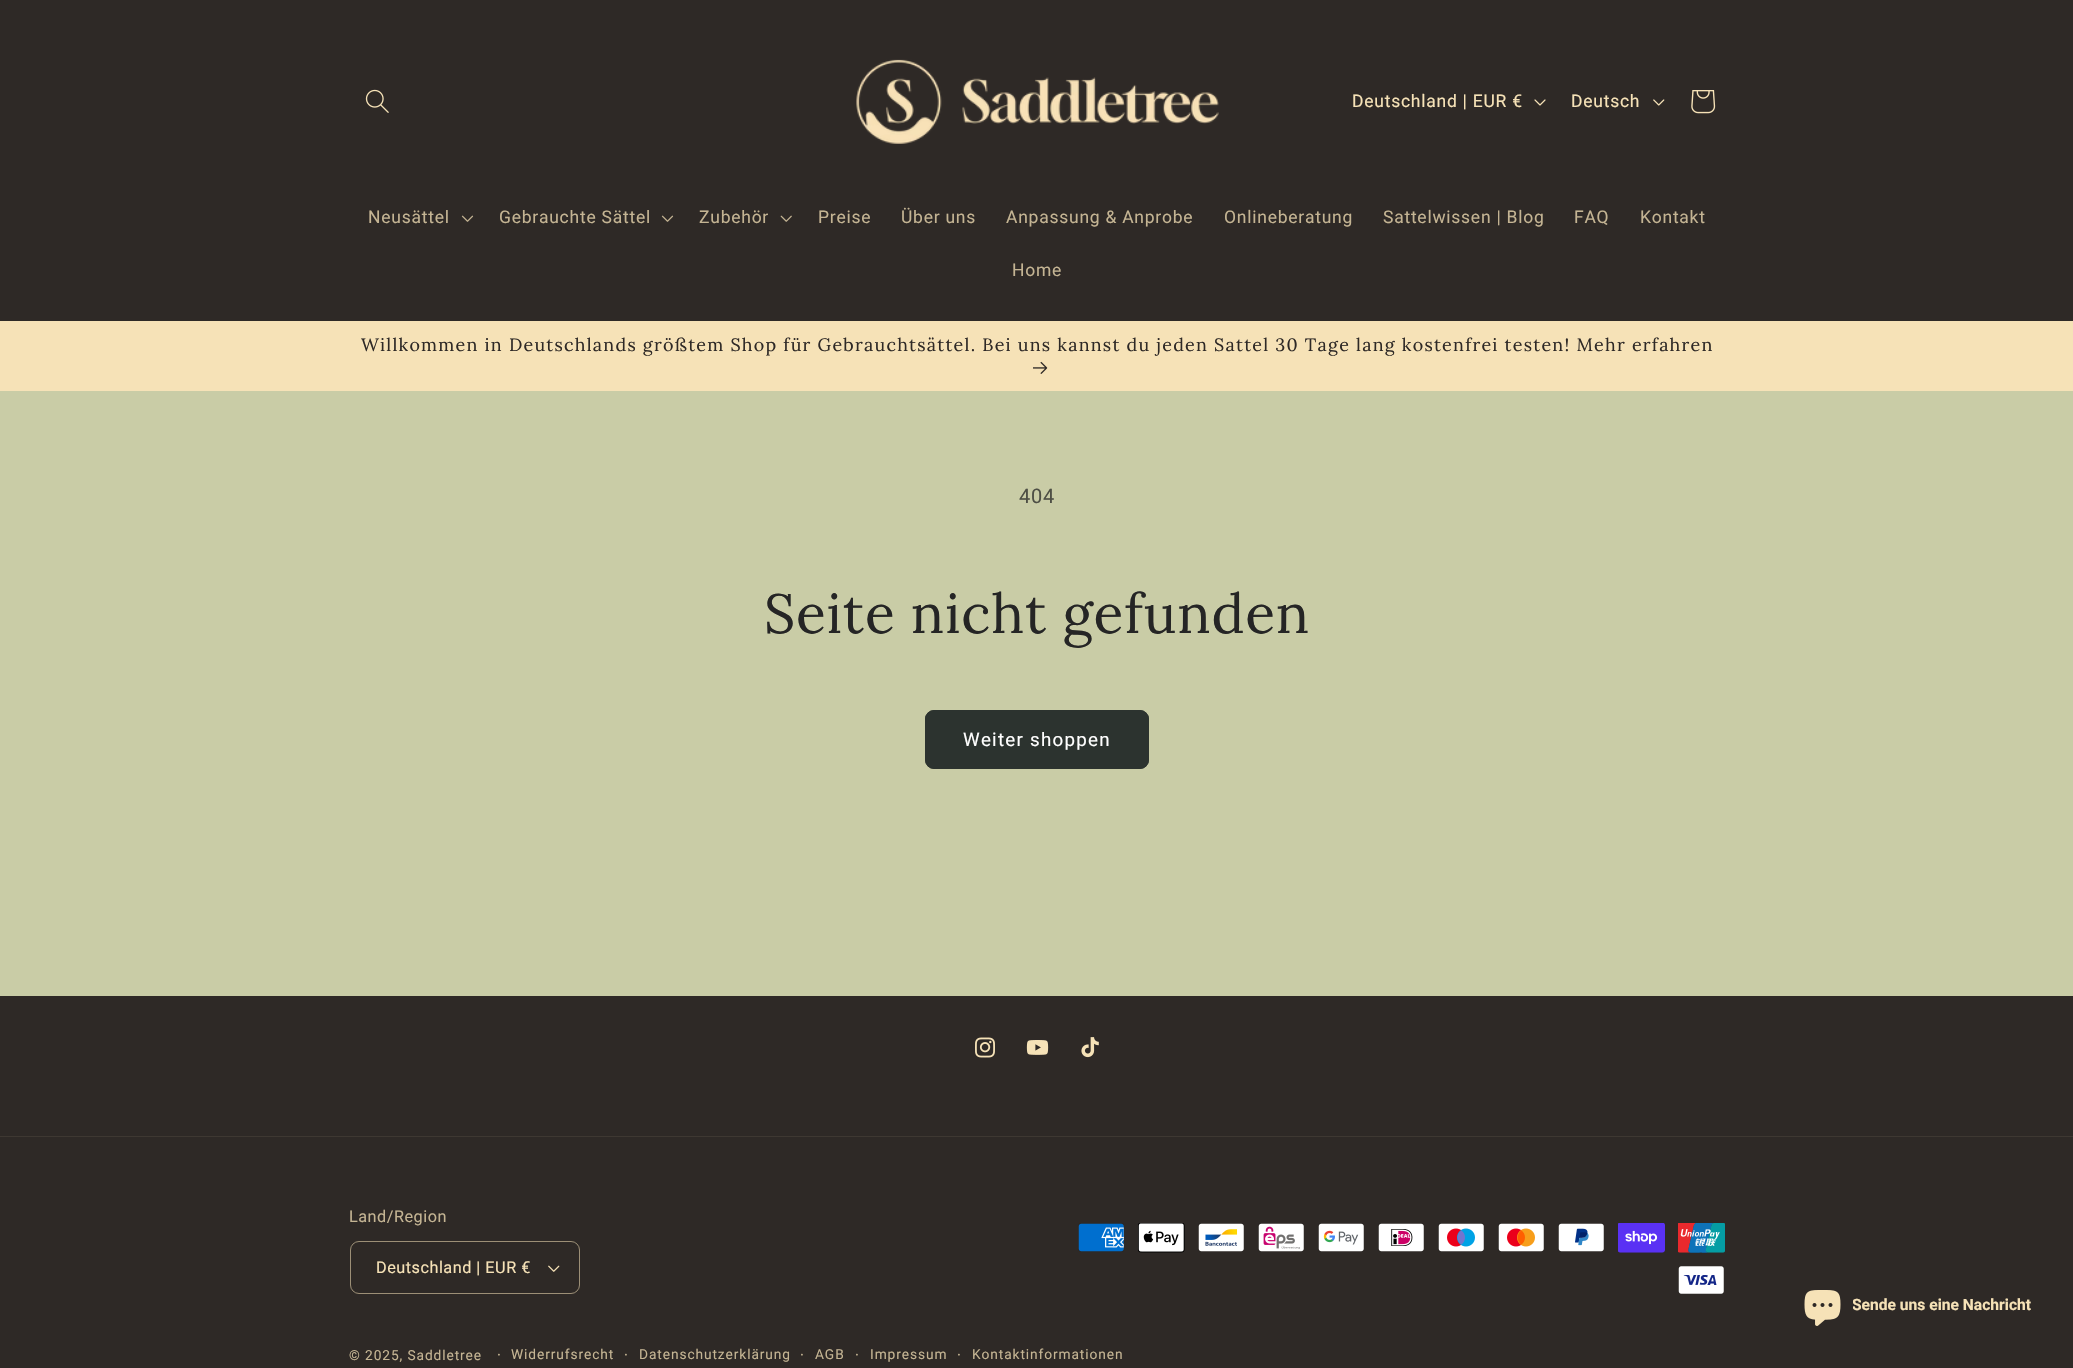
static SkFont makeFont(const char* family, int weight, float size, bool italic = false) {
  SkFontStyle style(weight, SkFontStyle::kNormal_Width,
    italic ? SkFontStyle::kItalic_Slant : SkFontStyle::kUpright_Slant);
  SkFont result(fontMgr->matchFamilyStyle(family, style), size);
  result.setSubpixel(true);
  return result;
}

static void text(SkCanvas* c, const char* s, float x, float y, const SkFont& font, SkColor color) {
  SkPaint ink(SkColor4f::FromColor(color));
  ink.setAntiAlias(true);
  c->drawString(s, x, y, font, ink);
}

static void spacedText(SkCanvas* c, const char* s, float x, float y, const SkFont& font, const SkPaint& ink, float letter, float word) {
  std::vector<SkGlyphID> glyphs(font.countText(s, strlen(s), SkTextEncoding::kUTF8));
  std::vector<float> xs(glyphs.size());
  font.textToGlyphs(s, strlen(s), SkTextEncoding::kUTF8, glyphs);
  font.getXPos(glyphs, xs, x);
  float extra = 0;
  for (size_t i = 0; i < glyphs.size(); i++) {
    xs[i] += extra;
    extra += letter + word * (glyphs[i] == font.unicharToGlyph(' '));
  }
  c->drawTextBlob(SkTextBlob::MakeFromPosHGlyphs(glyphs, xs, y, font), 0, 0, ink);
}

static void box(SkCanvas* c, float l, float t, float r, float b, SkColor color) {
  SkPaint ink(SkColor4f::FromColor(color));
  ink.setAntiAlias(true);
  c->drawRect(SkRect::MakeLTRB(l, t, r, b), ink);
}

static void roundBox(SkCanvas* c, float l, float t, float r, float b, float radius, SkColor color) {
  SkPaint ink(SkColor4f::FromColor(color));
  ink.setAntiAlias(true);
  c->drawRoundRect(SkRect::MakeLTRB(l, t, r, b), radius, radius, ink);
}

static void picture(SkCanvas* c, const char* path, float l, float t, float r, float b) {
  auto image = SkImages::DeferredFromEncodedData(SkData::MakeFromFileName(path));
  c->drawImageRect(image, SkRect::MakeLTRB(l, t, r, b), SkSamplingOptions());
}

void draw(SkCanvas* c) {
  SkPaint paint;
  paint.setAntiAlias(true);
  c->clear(0xffc9cca6);
  box(c, 0, 0, 2073, 321, 0xff2e2926);
  picture(c, "img_01.png", 365, 89, 389, 113);
  picture(c, "img_02.png", 856, 59, 1219, 144);
  SkFont face1 = makeFont("Roboto", 400, 17.5f);
  paint.setColor(0xfff6e2b7);
  spacedText(c, "Deutschland | EUR €", 1352, 107, face1, paint, 0.75f, 0);
  picture(c, "img_03.png", 1534, 99, 1546, 106);
  spacedText(c, "Deutsch", 1571, 107, face1, paint, 0.75f, 0);
  picture(c, "img_04.png", 1653, 99, 1665, 106);
  picture(c, "img_05.png", 1691, 90, 1716, 114);
  paint.setColor(0xffc4b493);
  spacedText(c, "Neusättel", 368, 223, face1, paint, 0.75f, 0);
  picture(c, "img_06.png", 461, 215, 474, 222);
  spacedText(c, "Gebrauchte Sättel", 499, 223, face1, paint, 0.75f, 0);
  picture(c, "img_06.png", 661, 215, 674, 222);
  spacedText(c, "Zubehör", 699, 223, face1, paint, 0.75f, 0);
  picture(c, "img_07.png", 780, 215, 792, 222);
  spacedText(c, "Preise", 818, 223, face1, paint, 0.75f, 0);
  spacedText(c, "Über uns", 901, 223, face1, paint, 0.75f, 0);
  spacedText(c, "Anpassung & Anprobe", 1006, 223, face1, paint, 0.75f, 0);
  spacedText(c, "Onlineberatung", 1224, 223, face1, paint, 0.75f, 0);
  spacedText(c, "Sattelwissen | Blog", 1383, 223, face1, paint, 0.75f, 0);
  spacedText(c, "FAQ", 1574, 223, face1, paint, 0.75f, 0);
  spacedText(c, "Kontakt", 1640, 223, face1, paint, 0.75f, 0);
  spacedText(c, "Home", 1012, 276, face1, paint, 0.75f, 0);
  box(c, 0, 321, 2073, 391, 0xfff6e2b7);
  SkFont face2 = makeFont("Lora", 400, 17.88f);
  paint.setColor(0xff2e2926);
  spacedText(c, "Willkommen in Deutschlands größtem Shop für Gebrauchtsättel. Bei uns kannst du jeden Sattel 30 Tage lang kostenfrei testen! Mehr erfahren", 361, 351, face2, paint, 1.25f, 0);
  picture(c, "img_08.png", 1033, 361, 1048, 374);
  SkFont face3 = makeFont("Roboto", 400, 20);
  paint.setColor(0xff4e4f45);
  spacedText(c, "404", 1019, 503, face3, paint, 0.75f, 0);
  SkFont face4 = makeFont("Lora", 400, 55);
  paint.setColor(0xff252525);
  spacedText(c, "Seite nicht gefunden", 764, 633, face4, paint, 0.8f, 0);
  roundBox(c, 925, 710, 1149, 769, 9, 0xff2c332f);
  paint.setStyle(SkPaint::kStroke_Style);
  paint.setStrokeWidth(1);
  paint.setColor(0xff2c332f);
  c->drawRoundRect(SkRect::MakeLTRB(925.5f, 710.5f, 1148.5f, 768.5f), 8.5f, 8.5f, paint);
  SkFont face5 = makeFont("Roboto", 400, 18.75f);
  paint.setStyle(SkPaint::kFill_Style);
  paint.setColor(0xffffffff);
  spacedText(c, "Weiter shoppen", 963, 746, face5, paint, 1.25f, 0);
  box(c, 0, 996, 2073, 1368, 0xff2e2926);
  picture(c, "img_09.png", 975, 1037, 995, 1058);
  picture(c, "img_10.png", 1026, 1040, 1049, 1055);
  picture(c, "img_11.png", 1081, 1037, 1099, 1058);
  box(c, 0, 1136, 2073, 1137, 0xff3e3832);
  SkFont face6 = makeFont("Roboto", 400, 16.25f);
  paint.setColor(0xffc4b493);
  spacedText(c, "Land/Region", 349, 1222, face6, paint, 0.5f, 0);
  picture(c, "img_12.png", 548, 1265, 560, 1272);
  paint.setStyle(SkPaint::kStroke_Style);
  paint.setColor(0xff9c8f76);
  c->drawRoundRect(SkRect::MakeLTRB(350.5f, 1241.5f, 579.5f, 1293.5f), 8.5f, 8.5f, paint);
  paint.setStyle(SkPaint::kFill_Style);
  paint.setColor(0xfff6e2b7);
  spacedText(c, "Deutschland | EUR €", 376, 1273, face6, paint, 0.5f, 0);
  picture(c, "img_13.png", 1078, 1223, 1124, 1252);
  picture(c, "img_14.png", 1138, 1223, 1185, 1253);
  picture(c, "img_15.png", 1198, 1223, 1244, 1252);
  picture(c, "img_16.png", 1258, 1223, 1304, 1252);
  picture(c, "img_17.png", 1318, 1223, 1364, 1252);
  picture(c, "img_18.png", 1378, 1223, 1424, 1252);
  picture(c, "img_19.png", 1438, 1223, 1484, 1252);
  picture(c, "img_20.png", 1498, 1223, 1544, 1252);
  picture(c, "img_21.png", 1558, 1223, 1604, 1252);
  picture(c, "img_22.png", 1618, 1223, 1665, 1253);
  picture(c, "img_23.png", 1678, 1223, 1725, 1253);
  picture(c, "img_24.png", 1678, 1266, 1724, 1294);
  SkFont face7 = makeFont("Roboto", 400, 13.75f);
  paint.setColor(0xffc4b493);
  spacedText(c, "© 2025, Saddletree", 349, 1360, face7, paint, 0.9f, 0);
  SkFont face8 = makeFont("Roboto", 400, 15);
  spacedText(c, "·", 497, 1360, face8, paint, 0.9f, 0);
  spacedText(c, "Widerrufsrecht", 511, 1359, face7, paint, 0.9f, 0);
  spacedText(c, "·", 624, 1360, face8, paint, 0.9f, 0);
  spacedText(c, "Datenschutzerklärung", 639, 1359, face7, paint, 0.9f, 0);
  spacedText(c, "·", 800, 1360, face8, paint, 0.9f, 0);
  spacedText(c, "AGB", 815, 1359, face7, paint, 0.9f, 0);
  spacedText(c, "·", 855, 1360, face8, paint, 0.9f, 0);
  spacedText(c, "Impressum", 870, 1359, face7, paint, 0.9f, 0);
  spacedText(c, "·", 957, 1360, face8, paint, 0.9f, 0);
  spacedText(c, "Kontaktinformationen", 972, 1359, face7, paint, 0.9f, 0);
  picture(c, "img_25.png", 1804, 1290, 1841, 1326);
  c->save();
  c->clipRect(SkRect::MakeLTRB(1853, 1286, 2031, 1324));
  SkFont face9 = makeFont("Roboto", 700, 15.6f);
  text(c, "Sende uns eine Nachricht", 1852, 1310, face9, 0xfff6e2b7);
  c->restore();
}
